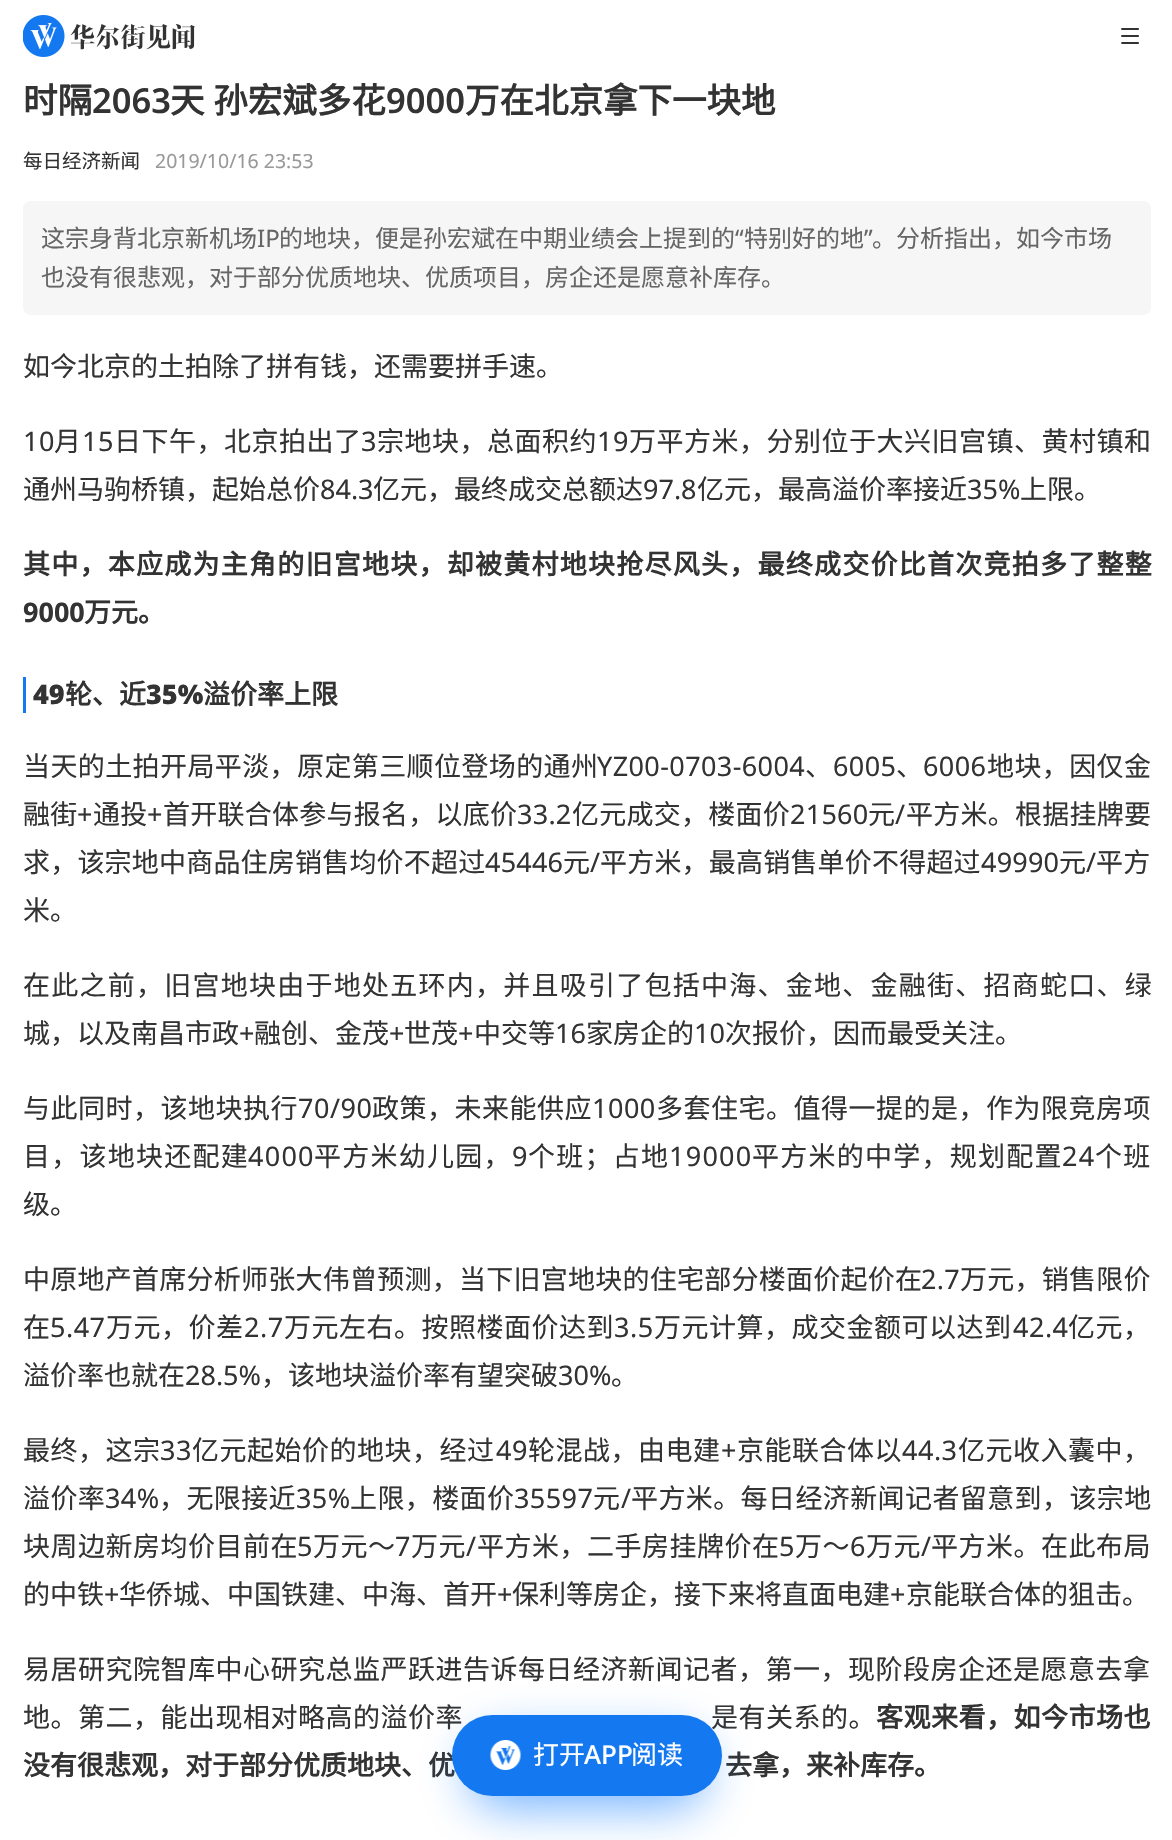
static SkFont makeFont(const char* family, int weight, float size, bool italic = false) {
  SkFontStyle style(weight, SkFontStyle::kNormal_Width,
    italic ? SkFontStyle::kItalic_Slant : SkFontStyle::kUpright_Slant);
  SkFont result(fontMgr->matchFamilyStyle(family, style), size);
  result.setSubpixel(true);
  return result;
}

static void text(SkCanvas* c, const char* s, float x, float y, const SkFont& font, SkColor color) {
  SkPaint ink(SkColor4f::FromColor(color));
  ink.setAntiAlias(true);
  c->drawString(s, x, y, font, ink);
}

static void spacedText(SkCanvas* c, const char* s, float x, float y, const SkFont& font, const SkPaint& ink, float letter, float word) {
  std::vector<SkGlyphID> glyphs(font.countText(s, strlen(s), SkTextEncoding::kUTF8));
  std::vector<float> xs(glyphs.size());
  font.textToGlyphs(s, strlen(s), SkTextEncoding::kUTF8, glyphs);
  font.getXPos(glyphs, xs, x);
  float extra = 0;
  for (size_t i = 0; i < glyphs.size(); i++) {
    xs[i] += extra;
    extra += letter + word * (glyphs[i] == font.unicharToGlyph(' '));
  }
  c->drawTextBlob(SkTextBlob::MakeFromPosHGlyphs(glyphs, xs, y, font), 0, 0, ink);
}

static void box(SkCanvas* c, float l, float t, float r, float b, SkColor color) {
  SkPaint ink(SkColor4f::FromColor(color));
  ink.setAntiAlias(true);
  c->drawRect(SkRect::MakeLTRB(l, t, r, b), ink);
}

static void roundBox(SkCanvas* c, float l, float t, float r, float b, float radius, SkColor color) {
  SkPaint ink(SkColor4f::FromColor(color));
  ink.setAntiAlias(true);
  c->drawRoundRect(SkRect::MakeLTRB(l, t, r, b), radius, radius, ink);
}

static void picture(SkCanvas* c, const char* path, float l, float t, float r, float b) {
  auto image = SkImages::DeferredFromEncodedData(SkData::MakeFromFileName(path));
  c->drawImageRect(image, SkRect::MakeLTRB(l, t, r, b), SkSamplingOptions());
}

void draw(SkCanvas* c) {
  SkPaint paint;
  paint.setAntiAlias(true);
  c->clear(0xffffffff);
  picture(c, "img_01.png", 23, 15, 65, 57);
  picture(c, "img_02.png", 71, 24, 195, 50);
  picture(c, "img_03.png", 1121, 28, 1139, 44);
  SkFont face1 = makeFont("Noto Sans CJK SC", 700, 34.5f);
  text(c, "时隔", 23, 113, face1, 0xff333333);
  SkFont face2 = makeFont("Noto Sans", 600, 34.5f);
  text(c, "2063", 92, 113, face2, 0xff333333);
  paint.setColor(0xff333333);
  spacedText(c, "天 孙宏斌多花", 170, 113, face1, paint, 0, 1);
  text(c, "9000", 386, 113, face2, 0xff333333);
  text(c, "万在北京拿下一块地", 465, 113, face1, 0xff333333);
  SkFont face3 = makeFont("Noto Sans CJK SC", 400, 19.5f);
  text(c, "每日经济新闻", 23, 168, face3, 0xff333333);
  SkFont face4 = makeFont("Noto Sans", 400, 19.5f);
  text(c, "2019/10/16 23:53", 155, 168, face4, 0xff999999);
  roundBox(c, 23, 201, 1151, 315, 8, 0xfff6f6f6);
  SkFont face5 = makeFont("Noto Sans CJK SC", 400, 24);
  text(c, "这宗身背北京新机场", 41, 247, face5, 0xff666666);
  SkFont face6 = makeFont("Noto Sans", 400, 24);
  text(c, "IP", 257, 247, face6, 0xff666666);
  text(c, "的地块，便是孙宏斌在中期业绩会上提到的", 279, 247, face5, 0xff666666);
  text(c, "“", 735, 247, face6, 0xff666666);
  text(c, "特别好的地", 744, 247, face5, 0xff666666);
  text(c, "”", 864, 247, face6, 0xff666666);
  text(c, "。分析指出，如今市场", 872, 247, face5, 0xff666666);
  text(c, "也没有很悲观，对于部分优质地块、优质项目，房企还是愿意补库存。", 41, 286, face5, 0xff666666);
  SkFont face7 = makeFont("Noto Sans CJK SC", 400, 27);
  text(c, "如今北京的土拍除了拼有钱，还需要拼手速。", 23, 376, face7, 0xff333333);
  SkFont face8 = makeFont("Noto Sans", 400, 27);
  spacedText(c, "10", 23, 451, face8, paint, 0.5f, 0);
  spacedText(c, "月", 54, 451, face7, paint, 0.5f, 0);
  spacedText(c, "15", 82, 451, face8, paint, 0.5f, 0);
  spacedText(c, "日下午，北京拍出了", 114, 451, face7, paint, 0.5f, 0);
  spacedText(c, "3", 361, 451, face8, paint, 0.5f, 0);
  spacedText(c, "宗地块，总面积约", 377, 451, face7, paint, 0.5f, 0);
  spacedText(c, "19", 597, 451, face8, paint, 0.5f, 0);
  spacedText(c, "万平方米，分别位于大兴旧宫镇、黄村镇和", 629, 451, face7, paint, 0.5f, 0);
  text(c, "通州马驹桥镇，起始总价", 23, 499, face7, 0xff333333);
  text(c, "84.3", 320, 499, face8, 0xff333333);
  text(c, "亿元，最终成交总额达", 373, 499, face7, 0xff333333);
  text(c, "97.8", 643, 499, face8, 0xff333333);
  text(c, "亿元，最高溢价率接近", 697, 499, face7, 0xff333333);
  text(c, "35%", 967, 499, face8, 0xff333333);
  text(c, "上限。", 1020, 499, face7, 0xff333333);
  SkFont face9 = makeFont("Noto Sans CJK SC", 700, 27);
  spacedText(c, "其中，本应成为主角的旧宫地块，却被黄村地块抢尽风头，最终成交价比首次竞拍多了整整", 23, 574, face9, paint, 1.25f, 0);
  SkFont face10 = makeFont("Noto Sans", 700, 27);
  text(c, "9000", 23, 622, face10, 0xff333333);
  text(c, "万元。", 84, 622, face9, 0xff333333);
  box(c, 23, 677, 26, 713, 0xff1478f0);
  SkFont face11 = makeFont("Noto Sans", 900, 27);
  text(c, "49", 33, 704, face11, 0xff333333);
  text(c, "轮、近", 65, 704, face9, 0xff333333);
  text(c, "35%", 146, 704, face11, 0xff333333);
  text(c, "溢价率上限", 203, 704, face9, 0xff333333);
  spacedText(c, "当天的土拍开局平淡，原定第三顺位登场的通州", 23, 776, face7, paint, 0.4f, 0);
  spacedText(c, "YZ00-0703-6004", 597, 776, face8, paint, 0.4f, 0);
  spacedText(c, "、", 805, 776, face7, paint, 0.4f, 0);
  spacedText(c, "6005", 833, 776, face8, paint, 0.4f, 0);
  spacedText(c, "、", 896, 776, face7, paint, 0.4f, 0);
  spacedText(c, "6006", 923, 776, face8, paint, 0.4f, 0);
  spacedText(c, "地块，因仅金", 987, 776, face7, paint, 0.4f, 0);
  spacedText(c, "融街", 23, 824, face7, paint, 0.25f, 0);
  spacedText(c, "+", 77, 824, face8, paint, 0.25f, 0);
  spacedText(c, "通投", 93, 824, face7, paint, 0.25f, 0);
  spacedText(c, "+", 147, 824, face8, paint, 0.25f, 0);
  spacedText(c, "首开联合体参与报名，以底价", 163, 824, face7, paint, 0.25f, 0);
  spacedText(c, "33.2", 517, 824, face8, paint, 0.25f, 0);
  spacedText(c, "亿元成交，楼面价", 572, 824, face7, paint, 0.25f, 0);
  spacedText(c, "21560", 790, 824, face8, paint, 0.25f, 0);
  spacedText(c, "元", 868, 824, face7, paint, 0.25f, 0);
  spacedText(c, "/", 895, 824, face8, paint, 0.25f, 0);
  spacedText(c, "平方米。根据挂牌要", 906, 824, face7, paint, 0.25f, 0);
  spacedText(c, "求，该宗地中商品住房销售均价不超过", 23, 872, face7, paint, 0.2f, 0);
  spacedText(c, "45446", 485, 872, face8, paint, 0.2f, 0);
  spacedText(c, "元", 563, 872, face7, paint, 0.2f, 0);
  spacedText(c, "/", 590, 872, face8, paint, 0.2f, 0);
  spacedText(c, "平方米，最高销售单价不得超过", 600, 872, face7, paint, 0.2f, 0);
  spacedText(c, "49990", 981, 872, face8, paint, 0.2f, 0);
  spacedText(c, "元", 1059, 872, face7, paint, 0.2f, 0);
  spacedText(c, "/", 1086, 872, face8, paint, 0.2f, 0);
  spacedText(c, "平方", 1096, 872, face7, paint, 0.2f, 0);
  text(c, "米。", 23, 920, face7, 0xff333333);
  spacedText(c, "在此之前，旧宫地块由于地处五环内，并且吸引了包括中海、金地、金融街、招商蛇口、绿", 23, 995, face7, paint, 1.25f, 0);
  text(c, "城，以及南昌市政", 23, 1043, face7, 0xff333333);
  text(c, "+", 239, 1043, face8, 0xff333333);
  text(c, "融创、金茂", 254, 1043, face7, 0xff333333);
  text(c, "+", 389, 1043, face8, 0xff333333);
  text(c, "世茂", 404, 1043, face7, 0xff333333);
  text(c, "+", 458, 1043, face8, 0xff333333);
  text(c, "中交等", 474, 1043, face7, 0xff333333);
  text(c, "16", 555, 1043, face8, 0xff333333);
  text(c, "家房企的", 586, 1043, face7, 0xff333333);
  text(c, "10", 694, 1043, face8, 0xff333333);
  text(c, "次报价，因而最受关注。", 725, 1043, face7, 0xff333333);
  spacedText(c, "与此同时，该地块执行", 23, 1118, face7, paint, 0.5f, 0);
  spacedText(c, "70/90", 298, 1118, face8, paint, 0.5f, 0);
  spacedText(c, "政策，未来能供应", 372, 1118, face7, paint, 0.5f, 0);
  spacedText(c, "1000", 592, 1118, face8, paint, 0.5f, 0);
  spacedText(c, "多套住宅。值得一提的是，作为限竞房项", 656, 1118, face7, paint, 0.5f, 0);
  spacedText(c, "目，该地块还配建", 23, 1166, face7, paint, 1.25f, 0);
  spacedText(c, "4000", 248, 1166, face8, paint, 1.25f, 0);
  spacedText(c, "平方米幼儿园，", 314, 1166, face7, paint, 1.25f, 0);
  spacedText(c, "9", 512, 1166, face8, paint, 1.25f, 0);
  spacedText(c, "个班；占地", 528, 1166, face7, paint, 1.25f, 0);
  spacedText(c, "19000", 669, 1166, face8, paint, 1.25f, 0);
  spacedText(c, "平方米的中学，规划配置", 752, 1166, face7, paint, 1.25f, 0);
  spacedText(c, "24", 1062, 1166, face8, paint, 1.25f, 0);
  spacedText(c, "个班", 1095, 1166, face7, paint, 1.25f, 0);
  text(c, "级。", 23, 1214, face7, 0xff333333);
  spacedText(c, "中原地产首席分析师张大伟曾预测，当下旧宫地块的住宅部分楼面价起价在", 23, 1289, face7, paint, 0.25f, 0);
  spacedText(c, "2.7", 921, 1289, face8, paint, 0.25f, 0);
  spacedText(c, "万元，销售限价", 960, 1289, face7, paint, 0.25f, 0);
  spacedText(c, "在", 23, 1337, face7, paint, 0.5f, 0);
  spacedText(c, "5.47", 50, 1337, face8, paint, 0.5f, 0);
  spacedText(c, "万元，价差", 106, 1337, face7, paint, 0.5f, 0);
  spacedText(c, "2.7", 244, 1337, face8, paint, 0.5f, 0);
  spacedText(c, "万元左右。按照楼面价达到", 284, 1337, face7, paint, 0.5f, 0);
  spacedText(c, "3.5", 614, 1337, face8, paint, 0.5f, 0);
  spacedText(c, "万元计算，成交金额可以达到", 654, 1337, face7, paint, 0.5f, 0);
  spacedText(c, "42.4", 1013, 1337, face8, paint, 0.5f, 0);
  spacedText(c, "亿元，", 1068, 1337, face7, paint, 0.5f, 0);
  text(c, "溢价率也就在", 23, 1385, face7, 0xff333333);
  text(c, "28.5%", 185, 1385, face8, 0xff333333);
  text(c, "，该地块溢价率有望突破", 261, 1385, face7, 0xff333333);
  text(c, "30%", 558, 1385, face8, 0xff333333);
  text(c, "。", 611, 1385, face7, 0xff333333);
  spacedText(c, "最终，这宗", 23, 1460, face7, paint, 0.5f, 0);
  spacedText(c, "33", 160, 1460, face8, paint, 0.5f, 0);
  spacedText(c, "亿元起始价的地块，经过", 192, 1460, face7, paint, 0.5f, 0);
  spacedText(c, "49", 496, 1460, face8, paint, 0.5f, 0);
  spacedText(c, "轮混战，由电建", 528, 1460, face7, paint, 0.5f, 0);
  spacedText(c, "+", 721, 1460, face8, paint, 0.5f, 0);
  spacedText(c, "京能联合体以", 737, 1460, face7, paint, 0.5f, 0);
  spacedText(c, "44.3", 902, 1460, face8, paint, 0.5f, 0);
  spacedText(c, "亿元收入囊中，", 958, 1460, face7, paint, 0.5f, 0);
  spacedText(c, "溢价率", 23, 1508, face7, paint, 0.4f, 0);
  spacedText(c, "34%", 105, 1508, face8, paint, 0.4f, 0);
  spacedText(c, "，无限接近", 159, 1508, face7, paint, 0.4f, 0);
  spacedText(c, "35%", 296, 1508, face8, paint, 0.4f, 0);
  spacedText(c, "上限，楼面价", 350, 1508, face7, paint, 0.4f, 0);
  spacedText(c, "35597", 514, 1508, face8, paint, 0.4f, 0);
  spacedText(c, "元", 593, 1508, face7, paint, 0.4f, 0);
  spacedText(c, "/", 621, 1508, face8, paint, 0.4f, 0);
  spacedText(c, "平方米。每日经济新闻记者留意到，该宗地", 631, 1508, face7, paint, 0.4f, 0);
  spacedText(c, "块周边新房均价目前在", 23, 1556, face7, paint, 0.5f, 0);
  spacedText(c, "5", 297, 1556, face8, paint, 0.5f, 0);
  spacedText(c, "万元～", 313, 1556, face7, paint, 0.5f, 0);
  spacedText(c, "7", 395, 1556, face8, paint, 0.5f, 0);
  spacedText(c, "万元", 411, 1556, face7, paint, 0.5f, 0);
  spacedText(c, "/", 466, 1556, face8, paint, 0.5f, 0);
  spacedText(c, "平方米，二手房挂牌价在", 477, 1556, face7, paint, 0.5f, 0);
  spacedText(c, "5", 779, 1556, face8, paint, 0.5f, 0);
  spacedText(c, "万～", 795, 1556, face7, paint, 0.5f, 0);
  spacedText(c, "6", 850, 1556, face8, paint, 0.5f, 0);
  spacedText(c, "万元", 866, 1556, face7, paint, 0.5f, 0);
  spacedText(c, "/", 921, 1556, face8, paint, 0.5f, 0);
  spacedText(c, "平方米。在此布局", 931, 1556, face7, paint, 0.5f, 0);
  text(c, "的中铁", 23, 1604, face7, 0xff333333);
  text(c, "+", 104, 1604, face8, 0xff333333);
  text(c, "华侨城、中国铁建、中海、首开", 119, 1604, face7, 0xff333333);
  text(c, "+", 497, 1604, face8, 0xff333333);
  text(c, "保利等房企，接下来将直面电建", 512, 1604, face7, 0xff333333);
  text(c, "+", 890, 1604, face8, 0xff333333);
  text(c, "京能联合体的狙击。", 906, 1604, face7, 0xff333333);
  spacedText(c, "易居研究院智库中心研究总监严跃进告诉每日经济新闻记者，第一，现阶段房企还是愿意去拿", 23, 1679, face7, paint, 0.5f, 0);
  spacedText(c, "地。第二，能出现相对略高的溢价率", 23, 1727, face7, paint, 0.5f, 0);
  spacedText(c, "是有关系的。", 711, 1727, face7, paint, 0.5f, 0);
  spacedText(c, "客观来看，如今市场也", 876, 1727, face9, paint, 0.5f, 0);
  text(c, "没有很悲观，对于部分优质地块、优", 23, 1775, face9, 0xff333333);
  text(c, "去拿，来补库存。", 725, 1775, face9, 0xff333333);
  paint.setColor(0x991781ff);
  paint.setMaskFilter(SkMaskFilter::MakeBlur(kNormal_SkBlurStyle, 24));
  c->drawRoundRect(SkRect::MakeLTRB(468, 1737, 707, 1808), 35.5f, 35.5f, paint);
  paint.setMaskFilter(nullptr);
  roundBox(c, 452, 1715, 722, 1796, 40.5f, 0xff1478f0);
  picture(c, "img_04.png", 490, 1740, 521, 1770);
  SkFont face12 = makeFont("Noto Sans CJK SC", 400, 26);
  text(c, "打开", 533, 1764, face12, 0xffffffff);
  SkFont face13 = makeFont("Noto Sans", 500, 26);
  text(c, "APP", 584, 1764, face13, 0xffffffff);
  text(c, "阅读", 631, 1764, face12, 0xffffffff);
}
